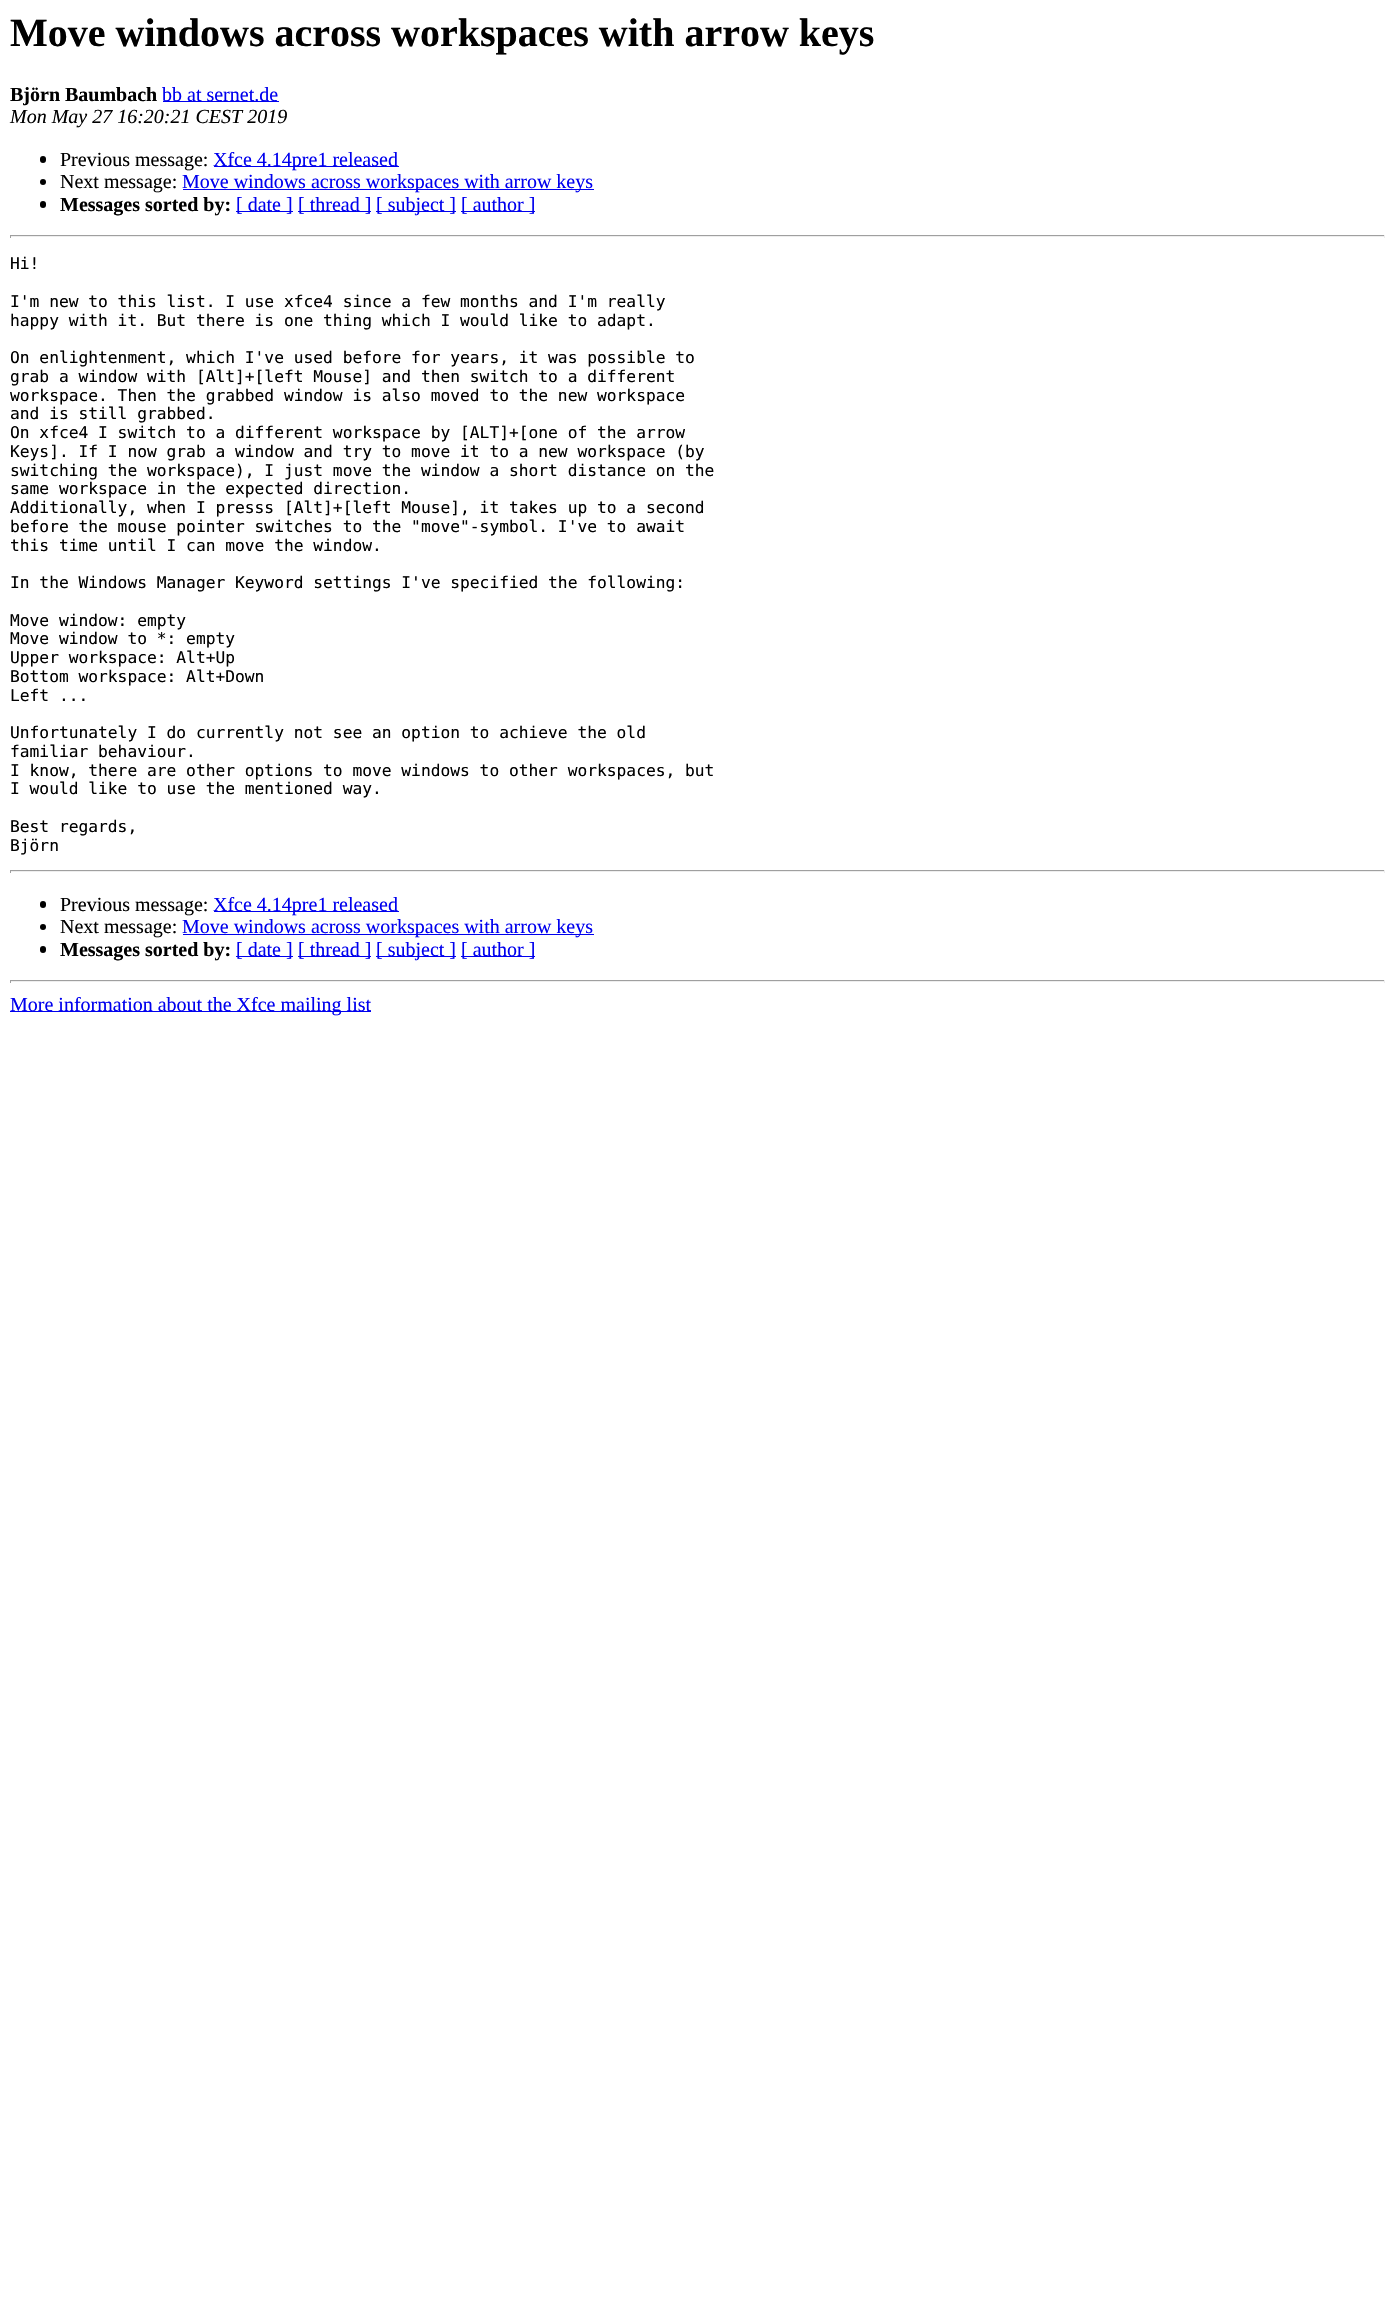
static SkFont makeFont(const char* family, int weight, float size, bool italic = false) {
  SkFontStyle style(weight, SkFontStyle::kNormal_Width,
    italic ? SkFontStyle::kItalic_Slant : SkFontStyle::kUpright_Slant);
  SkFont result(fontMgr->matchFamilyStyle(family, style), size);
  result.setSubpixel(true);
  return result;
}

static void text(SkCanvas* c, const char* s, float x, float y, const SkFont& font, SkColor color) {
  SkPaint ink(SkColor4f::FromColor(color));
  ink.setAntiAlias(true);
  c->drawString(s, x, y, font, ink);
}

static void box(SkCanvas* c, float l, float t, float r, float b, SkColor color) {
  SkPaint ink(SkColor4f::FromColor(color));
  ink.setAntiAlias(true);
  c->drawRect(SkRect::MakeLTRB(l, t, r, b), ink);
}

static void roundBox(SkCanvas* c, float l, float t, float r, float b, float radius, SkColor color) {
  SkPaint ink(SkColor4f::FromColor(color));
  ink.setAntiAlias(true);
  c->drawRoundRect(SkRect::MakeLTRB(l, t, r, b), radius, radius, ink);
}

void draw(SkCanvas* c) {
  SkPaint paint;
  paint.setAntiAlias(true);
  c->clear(0xffffffff);
  SkFont face1 = makeFont("Liberation Serif", 700, 40);
  text(c, "Move windows across workspaces with arrow keys", 10, 46, face1, 0xff000000);
  SkFont face2 = makeFont("Liberation Serif", 700, 20);
  text(c, "Björn Baumbach", 10, 101, face2, 0xff000000);
  box(c, 163, 101, 279, 102, 0xff0000ee);
  SkFont face3 = makeFont("Liberation Serif", 400, 20);
  text(c, "bb at sernet.de", 162, 101, face3, 0xff0000ee);
  SkFont face4 = makeFont("Liberation Serif", 400, 20, true);
  text(c, "Mon May 27 16:20:21 CEST 2019", 10, 123, face4, 0xff000000);
  roundBox(c, 40, 156, 46, 163, 3, 0xff000000);
  text(c, "Previous message:", 60, 166, face3, 0xff000000);
  box(c, 214, 166, 399, 167, 0xff0000ee);
  text(c, "Xfce 4.14pre1 released", 213, 166, face3, 0xff0000ee);
  paint.setColor(0xff000000);
  c->drawCircle(43, 182, 3, paint);
  text(c, "Next message:", 60, 188, face3, 0xff000000);
  box(c, 183, 189, 594, 190, 0xff0000ee);
  text(c, "Move windows across workspaces with arrow keys", 182, 188, face3, 0xff0000ee);
  roundBox(c, 40, 201, 46, 208, 3, 0xff000000);
  text(c, "Messages sorted by:", 60, 211, face2, 0xff000000);
  box(c, 236, 211, 293, 212, 0xff0000ee);
  text(c, "[ date ]", 236, 211, face3, 0xff0000ee);
  box(c, 298, 211, 371, 212, 0xff0000ee);
  text(c, "[ thread ]", 298, 211, face3, 0xff0000ee);
  box(c, 376, 211, 456, 212, 0xff0000ee);
  text(c, "[ subject ]", 376, 211, face3, 0xff0000ee);
  box(c, 461, 211, 535, 212, 0xff0000ee);
  text(c, "[ author ]", 461, 211, face3, 0xff0000ee);
  box(c, 10, 235, 1385, 236, 0xff9f9f9f);
  box(c, 1384, 235, 1385, 238, 0xffeeeeee);
  box(c, 10, 236, 1385, 237, 0xffeeeeee);
  box(c, 10, 235, 11, 238, 0xff9f9f9f);
  SkFont face5 = makeFont("DejaVu Sans Mono", 400, 16.25f);
  text(c, "Hi!", 10, 269, face5, 0xff000000);
  text(c, "I'm new to this list. I use xfce4 since a few months and I'm really", 10, 307, face5, 0xff000000);
  text(c, "happy with it. But there is one thing which I would like to adapt.", 10, 326, face5, 0xff000000);
  text(c, "On enlightenment, which I've used before for years, it was possible to", 10, 363, face5, 0xff000000);
  text(c, "grab a window with [Alt]+[left Mouse] and then switch to a different", 10, 382, face5, 0xff000000);
  text(c, "workspace. Then the grabbed window is also moved to the new workspace", 10, 401, face5, 0xff000000);
  text(c, "and is still grabbed.", 10, 419, face5, 0xff000000);
  text(c, "On xfce4 I switch to a different workspace by [ALT]+[one of the arrow", 10, 438, face5, 0xff000000);
  text(c, "Keys]. If I now grab a window and try to move it to a new workspace (by", 10, 457, face5, 0xff000000);
  text(c, "switching the workspace), I just move the window a short distance on the", 10, 476, face5, 0xff000000);
  text(c, "same workspace in the expected direction.", 10, 494, face5, 0xff000000);
  text(c, "Additionally, when I presss [Alt]+[left Mouse], it takes up to a second", 10, 513, face5, 0xff000000);
  text(c, "before the mouse pointer switches to the \"move\"-symbol. I've to await", 10, 532, face5, 0xff000000);
  text(c, "this time until I can move the window.", 10, 551, face5, 0xff000000);
  text(c, "In the Windows Manager Keyword settings I've specified the following:", 10, 588, face5, 0xff000000);
  text(c, "Move window: empty", 10, 626, face5, 0xff000000);
  text(c, "Move window to *: empty", 10, 644, face5, 0xff000000);
  text(c, "Upper workspace: Alt+Up", 10, 663, face5, 0xff000000);
  text(c, "Bottom workspace: Alt+Down", 10, 682, face5, 0xff000000);
  text(c, "Left ...", 10, 701, face5, 0xff000000);
  text(c, "Unfortunately I do currently not see an option to achieve the old", 10, 738, face5, 0xff000000);
  text(c, "familiar behaviour.", 10, 757, face5, 0xff000000);
  text(c, "I know, there are other options to move windows to other workspaces, but", 10, 776, face5, 0xff000000);
  text(c, "I would like to use the mentioned way.", 10, 794, face5, 0xff000000);
  text(c, "Best regards,", 10, 832, face5, 0xff000000);
  text(c, "Björn", 10, 851, face5, 0xff000000);
  box(c, 10, 870, 1385, 871, 0xff9f9f9f);
  box(c, 1384, 870, 1385, 873, 0xffeeeeee);
  box(c, 10, 871, 1385, 872, 0xffeeeeee);
  box(c, 10, 870, 11, 873, 0xff9f9f9f);
  roundBox(c, 40, 901, 46, 908, 3, 0xff000000);
  text(c, "Previous message:", 60, 911, face3, 0xff000000);
  box(c, 214, 911, 399, 912, 0xff0000ee);
  text(c, "Xfce 4.14pre1 released", 213, 911, face3, 0xff0000ee);
  c->drawCircle(43, 927, 3, paint);
  text(c, "Next message:", 60, 933, face3, 0xff000000);
  box(c, 183, 934, 594, 935, 0xff0000ee);
  text(c, "Move windows across workspaces with arrow keys", 182, 933, face3, 0xff0000ee);
  roundBox(c, 40, 946, 46, 953, 3, 0xff000000);
  text(c, "Messages sorted by:", 60, 956, face2, 0xff000000);
  box(c, 236, 956, 293, 957, 0xff0000ee);
  text(c, "[ date ]", 236, 956, face3, 0xff0000ee);
  box(c, 298, 956, 371, 957, 0xff0000ee);
  text(c, "[ thread ]", 298, 956, face3, 0xff0000ee);
  box(c, 376, 956, 456, 957, 0xff0000ee);
  text(c, "[ subject ]", 376, 956, face3, 0xff0000ee);
  box(c, 461, 956, 535, 957, 0xff0000ee);
  text(c, "[ author ]", 461, 956, face3, 0xff0000ee);
  box(c, 10, 980, 1385, 981, 0xff9f9f9f);
  box(c, 1384, 980, 1385, 983, 0xffeeeeee);
  box(c, 10, 981, 1385, 982, 0xffeeeeee);
  box(c, 10, 980, 11, 983, 0xff9f9f9f);
  box(c, 10, 1011, 371, 1012, 0xff0000ee);
  text(c, "More information about the Xfce mailing list", 10, 1011, face3, 0xff0000ee);
}
